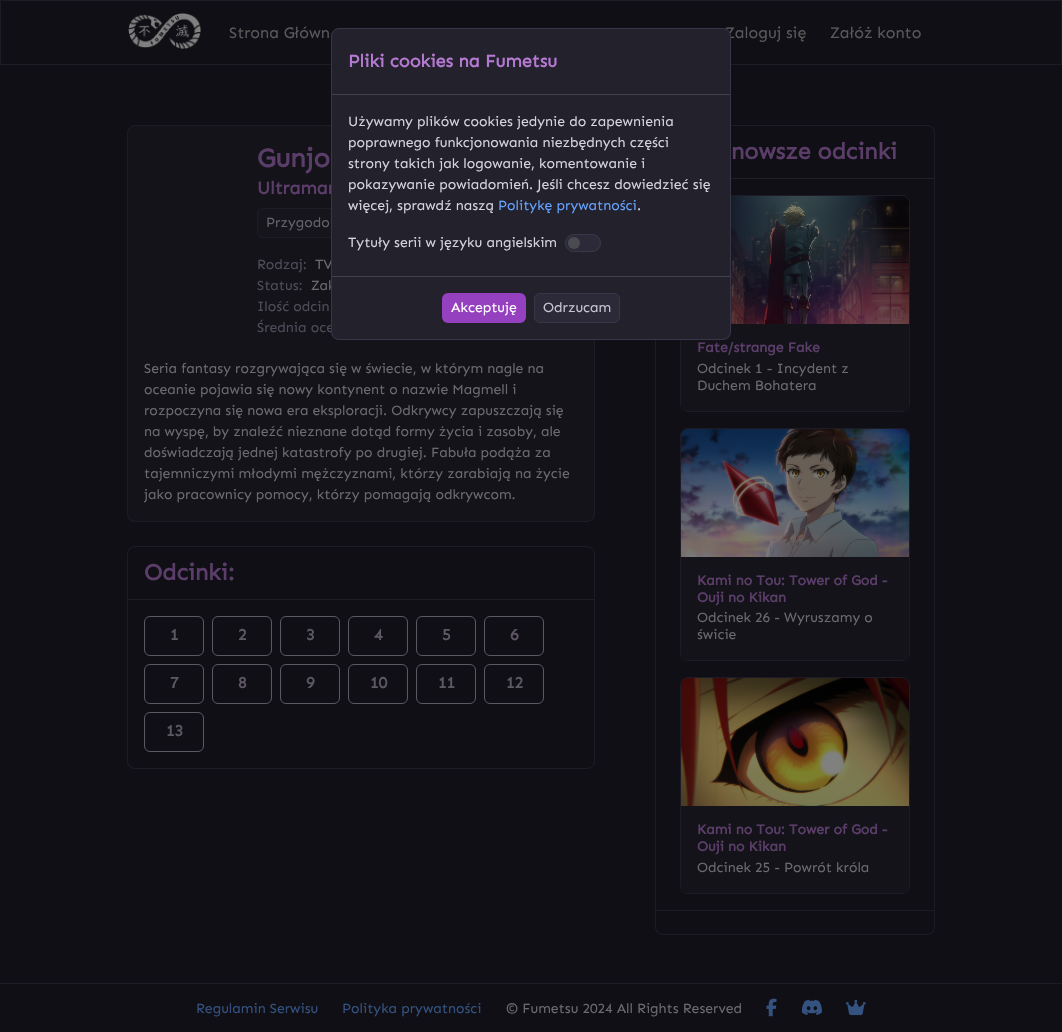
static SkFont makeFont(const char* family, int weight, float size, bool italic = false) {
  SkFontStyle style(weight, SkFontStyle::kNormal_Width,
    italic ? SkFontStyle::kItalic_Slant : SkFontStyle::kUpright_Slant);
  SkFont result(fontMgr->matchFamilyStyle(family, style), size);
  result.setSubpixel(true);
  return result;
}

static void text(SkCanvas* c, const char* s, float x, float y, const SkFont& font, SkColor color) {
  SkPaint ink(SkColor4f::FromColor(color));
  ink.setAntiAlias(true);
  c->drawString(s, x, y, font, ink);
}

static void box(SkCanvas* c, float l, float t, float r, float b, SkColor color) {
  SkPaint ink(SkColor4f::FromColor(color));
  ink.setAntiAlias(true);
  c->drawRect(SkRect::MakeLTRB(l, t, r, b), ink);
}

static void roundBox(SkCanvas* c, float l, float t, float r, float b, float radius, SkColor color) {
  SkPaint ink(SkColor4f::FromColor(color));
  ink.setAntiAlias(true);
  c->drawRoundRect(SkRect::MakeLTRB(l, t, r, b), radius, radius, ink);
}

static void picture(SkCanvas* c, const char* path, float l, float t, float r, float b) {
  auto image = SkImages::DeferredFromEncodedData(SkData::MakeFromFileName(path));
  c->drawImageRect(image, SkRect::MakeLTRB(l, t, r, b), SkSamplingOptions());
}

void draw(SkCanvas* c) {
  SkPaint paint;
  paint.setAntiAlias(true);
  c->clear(0xff100f15);
  paint.setStyle(SkPaint::kStroke_Style);
  paint.setStrokeWidth(1);
  paint.setColor(0xff1d1b25);
  c->drawRect(SkRect::MakeLTRB(0.5f, 0.5f, 1061.5f, 64.5f), paint);
  picture(c, "img_01.png", 128, 13, 201, 49);
  SkFont face1 = makeFont("Sen", 400, 16);
  text(c, "Strona Główn", 229, 38, face1, 0xff59595b);
  text(c, "Zaloguj się", 725, 38, face1, 0xff59595b);
  text(c, "Załóż konto", 830, 38, face1, 0xff59595b);
  paint.setStyle(SkPaint::kFill_Style);
  paint.setColor(0xff141319);
  c->drawRoundRect(SkRect::MakeLTRB(127.5f, 125.5f, 594.5f, 521.5f), 7.5f, 7.5f, paint);
  paint.setStyle(SkPaint::kStroke_Style);
  paint.setColor(0xff1d1b25);
  c->drawRoundRect(SkRect::MakeLTRB(127.5f, 125.5f, 594.5f, 521.5f), 7.5f, 7.5f, paint);
  SkFont face2 = makeFont("Sen", 700, 18);
  text(c, "Ultramar", 257, 194, face2, 0xff5b3d69);
  paint.setStyle(SkPaint::kFill_Style);
  paint.setColor(0xff16151c);
  c->drawRoundRect(SkRect::MakeLTRB(257.5f, 208.5f, 356.5f, 237.5f), 5.5f, 5.5f, paint);
  paint.setStyle(SkPaint::kStroke_Style);
  paint.setColor(0xff1d1b25);
  c->drawRoundRect(SkRect::MakeLTRB(257.5f, 208.5f, 356.5f, 237.5f), 5.5f, 5.5f, paint);
  SkFont face3 = makeFont("Sen", 400, 14);
  text(c, "TV", 315, 269, face3, 0xff6b6a6f);
  text(c, "Zak", 311, 290, face3, 0xff6b6a6f);
  text(c, "Średnia oce", 257, 332, face3, 0xff4f4c5a);
  c->drawRoundRect(SkRect::MakeLTRB(655.5f, 125.5f, 934.5f, 934.5f), 7.5f, 7.5f, paint);
  c->drawRoundRect(SkRect::MakeLTRB(680.5f, 195.5f, 909.5f, 411.5f), 7.5f, 7.5f, paint);
  box(c, 681, 324, 909, 411, 0xff141319);
  paint.setStyle(SkPaint::kFill_Style);
  paint.setColor(0xff22212c);
  c->drawRoundRect(SkRect::MakeLTRB(331.5f, 28.5f, 730.5f, 339.5f), 7.5f, 7.5f, paint);
  paint.setStyle(SkPaint::kStroke_Style);
  paint.setColor(0xff393649);
  c->drawRoundRect(SkRect::MakeLTRB(331.5f, 28.5f, 730.5f, 339.5f), 7.5f, 7.5f, paint);
  box(c, 332, 94, 730, 95, 0xff43424c);
  text(c, "Pliki cookies na Fumetsu", 348, 67, face2, 0xffb579d2);
  text(c, "Używamy plików cookies jedynie do zapewnienia", 348, 126, face3, 0xffd5d3de);
  text(c, "poprawnego funkcjonowania niezbędnych części", 348, 147, face3, 0xffd5d3de);
  text(c, "strony takich jak logowanie, komentowanie i", 348, 168, face3, 0xffd5d3de);
  text(c, "pokazywanie powiadomień. Jeśli chcesz dowiedzieć się", 348, 189, face3, 0xffd5d3de);
  text(c, "więcej, sprawdź naszą", 348, 210, face3, 0xffd5d3de);
  text(c, "Politykę prywatności", 498, 210, face3, 0xff66a3ff);
  text(c, ".", 637, 210, face3, 0xffd5d3de);
  text(c, "Tytuły serii w języku angielskim", 348, 247, face3, 0xffd5d3de);
  roundBox(c, 565, 234, 601, 252, 9, 0xff2c2938);
  paint.setStyle(SkPaint::kFill_Style);
  paint.setColor(0xff494b50);
  c->drawCircle(574, 243, 6, paint);
  paint.setStyle(SkPaint::kStroke_Style);
  paint.setColor(0xff393649);
  c->drawRoundRect(SkRect::MakeLTRB(565.5f, 234.5f, 600.5f, 251.5f), 8.5f, 8.5f, paint);
  box(c, 332, 276, 730, 277, 0xff43424c);
  roundBox(c, 442, 293, 526, 323, 6, 0xff9540bf);
  text(c, "Akceptuję", 451, 312, face3, 0xffffffff);
  paint.setStyle(SkPaint::kFill_Style);
  paint.setColor(0xff2c2938);
  c->drawRoundRect(SkRect::MakeLTRB(534.5f, 293.5f, 619.5f, 322.5f), 5.5f, 5.5f, paint);
  paint.setStyle(SkPaint::kStroke_Style);
  paint.setColor(0xff393649);
  c->drawRoundRect(SkRect::MakeLTRB(534.5f, 293.5f, 619.5f, 322.5f), 5.5f, 5.5f, paint);
  text(c, "Odrzucam", 543, 312, face3, 0xffc7c4d4);
  SkFont face4 = makeFont("Sen", 700, 27);
  text(c, "Gunjo", 257, 167, face4, 0xff5b3d69);
  text(c, "Przygodo", 266, 227, face3, 0xff64626a);
  text(c, "Rodzaj:", 257, 269, face3, 0xff4f4c5a);
  text(c, "Status:", 257, 290, face3, 0xff4f4c5a);
  text(c, "Ilość odcin", 257, 311, face3, 0xff4f4c5a);
  text(c, "Seria fantasy rozgrywająca się w świecie, w którym nagle na", 144, 373, face3, 0xff6b6a6f);
  text(c, "oceanie pojawia się nowy kontynent o nazwie Magmell i", 144, 394, face3, 0xff6b6a6f);
  text(c, "rozpoczyna się nowa era eksploracji. Odkrywcy zapuszczają się", 144, 415, face3, 0xff6b6a6f);
  text(c, "na wyspę, by znaleźć nieznane dotąd formy życia i zasoby, ale", 144, 436, face3, 0xff6b6a6f);
  text(c, "doświadczają jednej katastrofy po drugiej. Fabuła podąża za", 144, 457, face3, 0xff6b6a6f);
  text(c, "tajemniczymi młodymi mężczyznami, którzy zarabiają na życie", 144, 478, face3, 0xff6b6a6f);
  text(c, "jako pracownicy pomocy, którzy pomagają odkrywcom.", 144, 499, face3, 0xff6b6a6f);
  paint.setColor(0xff1d1b25);
  c->drawRoundRect(SkRect::MakeLTRB(127.5f, 546.5f, 594.5f, 768.5f), 7.5f, 7.5f, paint);
  box(c, 128, 599, 594, 600, 0xff202024);
  SkFont face5 = makeFont("Sen", 700, 23.25f);
  text(c, "Odcinki:", 144, 580, face5, 0xff5b3d69);
  paint.setColor(0xff5c5762);
  c->drawRoundRect(SkRect::MakeLTRB(144.5f, 616.5f, 203.5f, 655.5f), 5.5f, 5.5f, paint);
  SkFont face6 = makeFont("Sen", 700, 16);
  text(c, "1", 170, 640, face6, 0xff5c5762);
  c->drawRoundRect(SkRect::MakeLTRB(212.5f, 616.5f, 271.5f, 655.5f), 5.5f, 5.5f, paint);
  text(c, "2", 238, 640, face6, 0xff5c5762);
  c->drawRoundRect(SkRect::MakeLTRB(280.5f, 616.5f, 339.5f, 655.5f), 5.5f, 5.5f, paint);
  text(c, "3", 306, 640, face6, 0xff5c5762);
  c->drawRoundRect(SkRect::MakeLTRB(348.5f, 616.5f, 407.5f, 655.5f), 5.5f, 5.5f, paint);
  text(c, "4", 374, 640, face6, 0xff5c5762);
  c->drawRoundRect(SkRect::MakeLTRB(416.5f, 616.5f, 475.5f, 655.5f), 5.5f, 5.5f, paint);
  text(c, "5", 442, 640, face6, 0xff5c5762);
  c->drawRoundRect(SkRect::MakeLTRB(484.5f, 616.5f, 543.5f, 655.5f), 5.5f, 5.5f, paint);
  text(c, "6", 510, 640, face6, 0xff5c5762);
  c->drawRoundRect(SkRect::MakeLTRB(144.5f, 664.5f, 203.5f, 703.5f), 5.5f, 5.5f, paint);
  text(c, "7", 170, 688, face6, 0xff5c5762);
  c->drawRoundRect(SkRect::MakeLTRB(212.5f, 664.5f, 271.5f, 703.5f), 5.5f, 5.5f, paint);
  text(c, "8", 238, 688, face6, 0xff5c5762);
  c->drawRoundRect(SkRect::MakeLTRB(280.5f, 664.5f, 339.5f, 703.5f), 5.5f, 5.5f, paint);
  text(c, "9", 306, 688, face6, 0xff5c5762);
  c->drawRoundRect(SkRect::MakeLTRB(348.5f, 664.5f, 407.5f, 703.5f), 5.5f, 5.5f, paint);
  text(c, "10", 370, 688, face6, 0xff5c5762);
  c->drawRoundRect(SkRect::MakeLTRB(416.5f, 664.5f, 475.5f, 703.5f), 5.5f, 5.5f, paint);
  text(c, "11", 438, 688, face6, 0xff5c5762);
  c->drawRoundRect(SkRect::MakeLTRB(484.5f, 664.5f, 543.5f, 703.5f), 5.5f, 5.5f, paint);
  text(c, "12", 506, 688, face6, 0xff5c5762);
  c->drawRoundRect(SkRect::MakeLTRB(144.5f, 712.5f, 203.5f, 751.5f), 5.5f, 5.5f, paint);
  text(c, "13", 166, 736, face6, 0xff5c5762);
  box(c, 731, 178, 934, 179, 0xff201f23);
  text(c, "nowsze odcinki", 731, 159, face5, 0xff5b3d69);
  picture(c, "img_02.png", 731, 196, 909, 324);
  SkFont face7 = makeFont("Sen", 700, 14);
  text(c, "Fate/strange Fake", 697, 352, face7, 0xff5b3d69);
  text(c, "Odcinek 1 - Incydent z", 697, 373, face3, 0xff6b6a6f);
  text(c, "Duchem Bohatera", 697, 390, face3, 0xff6b6a6f);
  paint.setColor(0xff1d1b25);
  c->drawRoundRect(SkRect::MakeLTRB(680.5f, 428.5f, 909.5f, 660.5f), 7.5f, 7.5f, paint);
  picture(c, "img_03.png", 681, 429, 909, 557);
  box(c, 681, 557, 909, 660, 0xff141319);
  text(c, "Kami no Tou: Tower of God -", 697, 585, face7, 0xff5b3d69);
  text(c, "Ouji no Kikan", 697, 602, face7, 0xff5b3d69);
  text(c, "Odcinek 26 - Wyruszamy o", 697, 622, face3, 0xff6b6a6f);
  text(c, "świcie", 697, 639, face3, 0xff6b6a6f);
  c->drawRoundRect(SkRect::MakeLTRB(680.5f, 677.5f, 909.5f, 893.5f), 7.5f, 7.5f, paint);
  picture(c, "img_04.png", 681, 678, 909, 806);
  box(c, 681, 806, 909, 893, 0xff141319);
  text(c, "Kami no Tou: Tower of God -", 697, 834, face7, 0xff5b3d69);
  text(c, "Ouji no Kikan", 697, 851, face7, 0xff5b3d69);
  text(c, "Odcinek 25 - Powrót króla", 697, 872, face3, 0xff6b6a6f);
  box(c, 656, 910, 934, 911, 0xff1d1b25);
  box(c, 0, 983, 1062, 984, 0xff1d1b25);
  text(c, "Regulamin Serwisu", 196, 1013, face3, 0xff335280);
  text(c, "Polityka prywatności", 342, 1013, face3, 0xff335280);
  text(c, "© Fumetsu 2024 All Rights Reserved", 506, 1013, face3, 0xff6b6a6f);
  picture(c, "img_05.png", 766, 998, 777, 1017);
  picture(c, "img_06.png", 801, 999, 822, 1015);
  picture(c, "img_07.png", 846, 999, 866, 1016);
}
